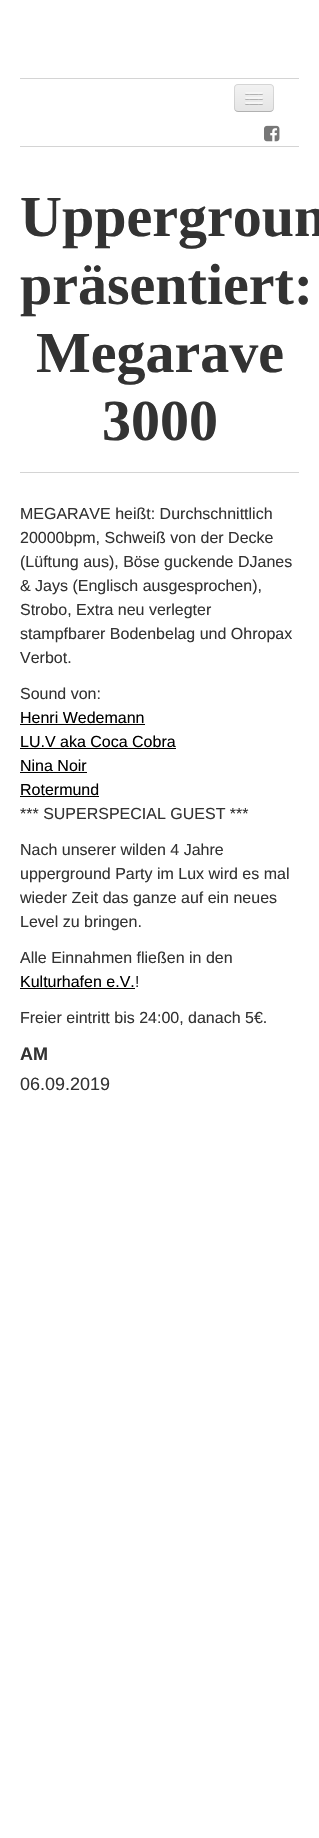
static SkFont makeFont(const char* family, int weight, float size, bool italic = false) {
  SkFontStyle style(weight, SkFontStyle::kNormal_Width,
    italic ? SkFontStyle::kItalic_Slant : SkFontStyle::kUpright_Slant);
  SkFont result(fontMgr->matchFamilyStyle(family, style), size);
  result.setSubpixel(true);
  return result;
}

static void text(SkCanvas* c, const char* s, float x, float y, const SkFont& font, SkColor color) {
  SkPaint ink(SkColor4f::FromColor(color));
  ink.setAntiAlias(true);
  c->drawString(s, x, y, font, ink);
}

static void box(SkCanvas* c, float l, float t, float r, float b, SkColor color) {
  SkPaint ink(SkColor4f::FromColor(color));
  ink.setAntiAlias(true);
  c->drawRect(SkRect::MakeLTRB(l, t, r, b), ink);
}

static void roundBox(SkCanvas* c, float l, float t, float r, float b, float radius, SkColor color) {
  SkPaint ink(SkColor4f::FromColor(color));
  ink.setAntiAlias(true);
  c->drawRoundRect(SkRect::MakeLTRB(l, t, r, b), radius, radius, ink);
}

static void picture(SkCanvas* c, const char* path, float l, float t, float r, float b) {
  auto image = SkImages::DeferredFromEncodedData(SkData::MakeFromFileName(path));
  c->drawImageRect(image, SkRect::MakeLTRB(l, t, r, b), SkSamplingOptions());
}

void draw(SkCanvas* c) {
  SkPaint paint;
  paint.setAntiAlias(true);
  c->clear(0xffffffff);
  box(c, 20, 78, 299, 79, 0xffd4d4d4);
  box(c, 20, 146, 299, 147, 0xffd4d4d4);
  roundBox(c, 234, 84, 274, 112, 4, 0xffededed);
  c->save();
  c->clipPath(SkPathBuilder().moveTo(238, 84).lineTo(270, 84).cubicTo(272, 84, 274, 86, 274, 88).lineTo(274, 108).cubicTo(274, 110, 272, 112, 270, 112).lineTo(238, 112).cubicTo(236, 112, 234, 110, 234, 108).lineTo(234, 88).cubicTo(234, 86, 236, 84, 238, 84).close().detach(), true);
  {
    const SkColor colors[] = {0xfff2f2f2, 0xffe5e5e5};
    const float stops[] = {0, 1};
    const SkPoint ends[] = {{254, 85}, {254, 111}};
    paint.setShader(SkGradientShader::MakeLinear(ends, colors, stops, 2, SkTileMode::kClamp));
    paint.setAlpha(255);
  }
  c->drawRect(SkRect::MakeLTRB(234, 85, 274, 111), paint);
  c->restore();
  paint.setStyle(SkPaint::kStroke_Style);
  paint.setStrokeWidth(1);
  paint.setShader(nullptr);
  paint.setColor(0x40000000);
  c->drawPath(SkPathBuilder().moveTo(272.5f, 110.5f).cubicTo(272, 111, 271, 111.5f, 270, 111.5f).lineTo(238, 111.5f).cubicTo(237, 111.5f, 236, 111, 235.5f, 110.5f).detach(), paint);
  paint.setColor(0x1a000000);
  c->drawPath(SkPathBuilder().moveTo(235.5f, 110.5f).cubicTo(235, 110, 234.5f, 109, 234.5f, 108).lineTo(234.5f, 88).cubicTo(234.5f, 87, 235, 86, 235.5f, 85.5f).cubicTo(236, 85, 237, 84.5f, 238, 84.5f).lineTo(270, 84.5f).cubicTo(271, 84.5f, 272, 85, 272.5f, 85.5f).cubicTo(273, 86, 273.5f, 87, 273.5f, 88).lineTo(273.5f, 108).cubicTo(273.5f, 109, 273, 110, 272.5f, 110.5f).detach(), paint);
  paint.setStyle(SkPaint::kFill_Style);
  paint.setColor(0xffb2b2b2);
  c->drawPath(SkPathBuilder().moveTo(245, 93.5f).cubicTo(244, 95.5f, 248.5f, 95, 248.5f, 95).lineTo(259.5f, 95).cubicTo(259.5f, 95, 264, 95.5f, 263, 93.5f).cubicTo(262, 94.5f, 255.5f, 94, 254, 94).cubicTo(252.5f, 94, 246, 94.5f, 245, 93.5f).close().detach(), paint);
  roundBox(c, 245, 92, 263, 94, 1, 0xfff5f5f5);
  paint.setColor(0xffb0b0b0);
  c->drawPath(SkPathBuilder().moveTo(245, 98.5f).cubicTo(244, 100.5f, 248.5f, 100, 248.5f, 100).lineTo(259.5f, 100).cubicTo(259.5f, 100, 264, 100.5f, 263, 98.5f).cubicTo(262, 99.5f, 255.5f, 99, 254, 99).cubicTo(252.5f, 99, 246, 99.5f, 245, 98.5f).close().detach(), paint);
  roundBox(c, 245, 97, 263, 99, 1, 0xfff5f5f5);
  paint.setColor(0xffaeaeae);
  c->drawPath(SkPathBuilder().moveTo(245, 103.5f).cubicTo(244, 105.5f, 248.5f, 105, 248.5f, 105).lineTo(259.5f, 105).cubicTo(259.5f, 105, 264, 105.5f, 263, 103.5f).cubicTo(262, 104.5f, 255.5f, 104, 254, 104).cubicTo(252.5f, 104, 246, 104.5f, 245, 103.5f).close().detach(), paint);
  roundBox(c, 245, 102, 263, 104, 1, 0xfff5f5f5);
  picture(c, "img_01.png", 264, 125, 280, 142);
  SkFont face1 = makeFont("Liberation Serif", 700, 58);
  text(c, "Uppergroun", 20, 236, face1, 0xff333333);
  text(c, "präsentiert:", 20, 304, face1, 0xff333333);
  text(c, "Megarave", 36, 372, face1, 0xff333333);
  text(c, "3000", 102, 440, face1, 0xff333333);
  box(c, 20, 472, 299, 473, 0xffd4d4d4);
  SkFont face2 = makeFont("Liberation Sans", 400, 16);
  text(c, "MEGARAVE heißt: Durchschnittlich", 20, 519, face2, 0xff333333);
  text(c, "20000bpm, Schweiß von der Decke", 20, 543, face2, 0xff333333);
  text(c, "(Lüftung aus), Böse guckende DJanes", 20, 567, face2, 0xff333333);
  text(c, "& Jays (Englisch ausgesprochen),", 20, 591, face2, 0xff333333);
  text(c, "Strobo, Extra neu verlegter", 20, 615, face2, 0xff333333);
  text(c, "stampfbarer Bodenbelag und Ohropax", 20, 639, face2, 0xff333333);
  text(c, "Verbot.", 20, 663, face2, 0xff333333);
  text(c, "Sound von:", 20, 699, face2, 0xff333333);
  text(c, "Henri Wedemann", 20, 723, face2, 0xff000000);
  box(c, 20, 724, 145, 725, 0xff000000);
  text(c, "LU.V aka Coca Cobra", 20, 747, face2, 0xff000000);
  box(c, 20, 748, 176, 749, 0xff000000);
  text(c, "Nina Noir", 20, 771, face2, 0xff000000);
  box(c, 20, 772, 87, 773, 0xff000000);
  text(c, "Rotermund", 20, 795, face2, 0xff000000);
  box(c, 20, 796, 99, 797, 0xff000000);
  text(c, "*** SUPERSPECIAL GUEST ***", 20, 819, face2, 0xff333333);
  text(c, "Nach unserer wilden 4 Jahre", 20, 855, face2, 0xff333333);
  text(c, "upperground Party im Lux wird es mal", 20, 879, face2, 0xff333333);
  text(c, "wieder Zeit das ganze auf ein neues", 20, 903, face2, 0xff333333);
  text(c, "Level zu bringen.", 20, 927, face2, 0xff333333);
  text(c, "Alle Einnahmen fließen in den", 20, 963, face2, 0xff333333);
  text(c, "Kulturhafen e.V.", 20, 987, face2, 0xff000000);
  box(c, 20, 988, 135, 989, 0xff000000);
  text(c, "!", 135, 987, face2, 0xff333333);
  text(c, "Freier eintritt bis 24:00, danach 5€.", 20, 1023, face2, 0xff333333);
  SkFont face3 = makeFont("Liberation Sans", 700, 18);
  text(c, "AM", 20, 1060, face3, 0xff333333);
  SkFont face4 = makeFont("Liberation Sans", 400, 18);
  text(c, "06.09.2019", 20, 1090, face4, 0xff333333);
}
